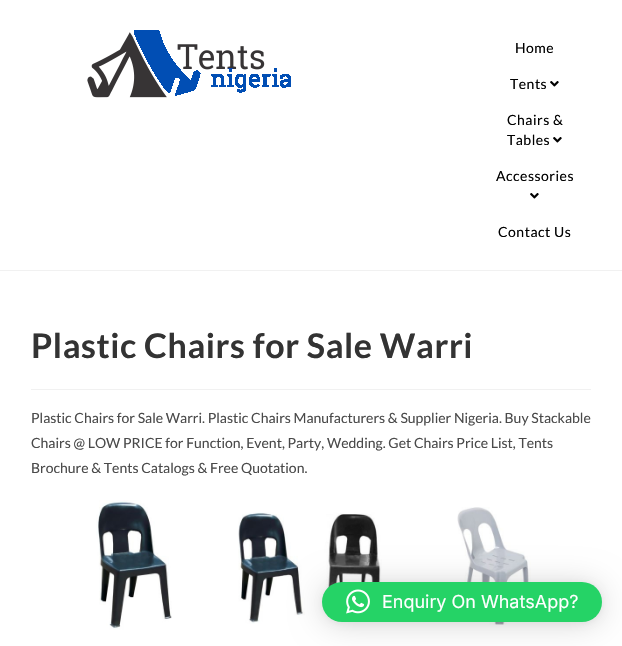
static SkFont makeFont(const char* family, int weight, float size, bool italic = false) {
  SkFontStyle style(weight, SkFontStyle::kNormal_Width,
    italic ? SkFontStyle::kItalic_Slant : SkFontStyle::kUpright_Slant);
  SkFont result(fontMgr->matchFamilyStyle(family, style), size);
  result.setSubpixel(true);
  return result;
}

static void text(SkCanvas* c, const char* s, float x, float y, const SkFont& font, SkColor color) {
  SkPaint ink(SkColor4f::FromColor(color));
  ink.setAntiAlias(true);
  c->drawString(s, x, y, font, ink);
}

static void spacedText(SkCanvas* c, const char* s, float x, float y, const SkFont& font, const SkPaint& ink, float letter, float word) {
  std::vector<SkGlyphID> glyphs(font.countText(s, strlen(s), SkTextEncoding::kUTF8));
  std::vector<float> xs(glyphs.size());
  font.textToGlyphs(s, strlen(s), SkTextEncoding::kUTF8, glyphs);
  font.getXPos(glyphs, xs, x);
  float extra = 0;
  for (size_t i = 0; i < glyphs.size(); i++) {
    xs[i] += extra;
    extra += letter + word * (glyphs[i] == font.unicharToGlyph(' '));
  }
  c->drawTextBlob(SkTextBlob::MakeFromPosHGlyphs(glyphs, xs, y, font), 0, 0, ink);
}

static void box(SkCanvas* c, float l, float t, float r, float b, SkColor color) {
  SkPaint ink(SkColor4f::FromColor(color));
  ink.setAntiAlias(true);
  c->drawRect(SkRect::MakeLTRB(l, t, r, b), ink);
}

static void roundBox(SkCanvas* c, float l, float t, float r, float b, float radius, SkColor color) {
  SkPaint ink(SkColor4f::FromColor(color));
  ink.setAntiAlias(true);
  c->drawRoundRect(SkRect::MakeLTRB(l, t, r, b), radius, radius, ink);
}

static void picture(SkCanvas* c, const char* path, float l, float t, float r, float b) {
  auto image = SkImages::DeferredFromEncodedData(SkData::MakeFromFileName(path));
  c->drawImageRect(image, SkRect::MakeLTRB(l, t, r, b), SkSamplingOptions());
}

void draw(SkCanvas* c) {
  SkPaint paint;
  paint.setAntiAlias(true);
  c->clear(0xffffffff);
  box(c, 0, 270, 622, 271, 0xfff1f1f1);
  picture(c, "img_01.png", 87, 30, 291, 98);
  SkFont face1 = makeFont("Lato", 400, 14);
  paint.setColor(0xff000000);
  spacedText(c, "Home", 515, 53, face1, paint, 0.5f, 0);
  spacedText(c, "Tents", 510, 89, face1, paint, 0.5f, 0);
  picture(c, "img_02.png", 550, 81, 559, 87);
  spacedText(c, "Chairs &", 507, 125, face1, paint, 0.5f, 0);
  spacedText(c, "Tables", 507, 145, face1, paint, 0.5f, 0);
  picture(c, "img_02.png", 553, 137, 562, 143);
  spacedText(c, "Accessories", 496, 181, face1, paint, 0.5f, 0);
  picture(c, "img_02.png", 530, 193, 539, 199);
  spacedText(c, "Contact Us", 498, 237, face1, paint, 0.5f, 0);
  box(c, 31, 389, 591, 390, 0xfff1f1f1);
  SkFont face2 = makeFont("Lato", 700, 34);
  paint.setColor(0xff333333);
  spacedText(c, "Plastic Chairs for Sale Warri", 31, 358, face2, paint, 0.6f, 0);
  text(c, "Plastic Chairs for Sale Warri. Plastic Chairs Manufacturers & Supplier Nigeria. Buy Stackable", 31, 423, face1, 0xff4a4a4a);
  text(c, "Chairs @ LOW PRICE for Function, Event, Party, Wedding. Get Chairs Price List, Tents", 31, 448, face1, 0xff4a4a4a);
  text(c, "Brochure & Tents Catalogs & Free Quotation.", 31, 473, face1, 0xff4a4a4a);
  picture(c, "img_03.png", 96, 500, 172, 630);
  picture(c, "img_04.png", 238, 512, 384, 624);
  picture(c, "img_05.png", 457, 507, 531, 625);
  paint.setColor(0x29000000);
  paint.setMaskFilter(SkMaskFilter::MakeBlur(kNormal_SkBlurStyle, 16));
  c->drawRoundRect(SkRect::MakeLTRB(322, 584, 602, 624), 20, 20, paint);
  paint.setMaskFilter(nullptr);
  paint.setColor(0x0f000000);
  paint.setMaskFilter(SkMaskFilter::MakeBlur(kNormal_SkBlurStyle, 3));
  c->drawRoundRect(SkRect::MakeLTRB(322, 583, 602, 623), 20, 20, paint);
  paint.setMaskFilter(nullptr);
  roundBox(c, 322, 582, 602, 622, 20, 0xff25d366);
  picture(c, "img_06.png", 346, 589, 370, 614);
  SkFont face3 = makeFont("Inter", 400, 18);
  text(c, "Enquiry On WhatsApp?", 382, 608, face3, 0xffffffff);
}
